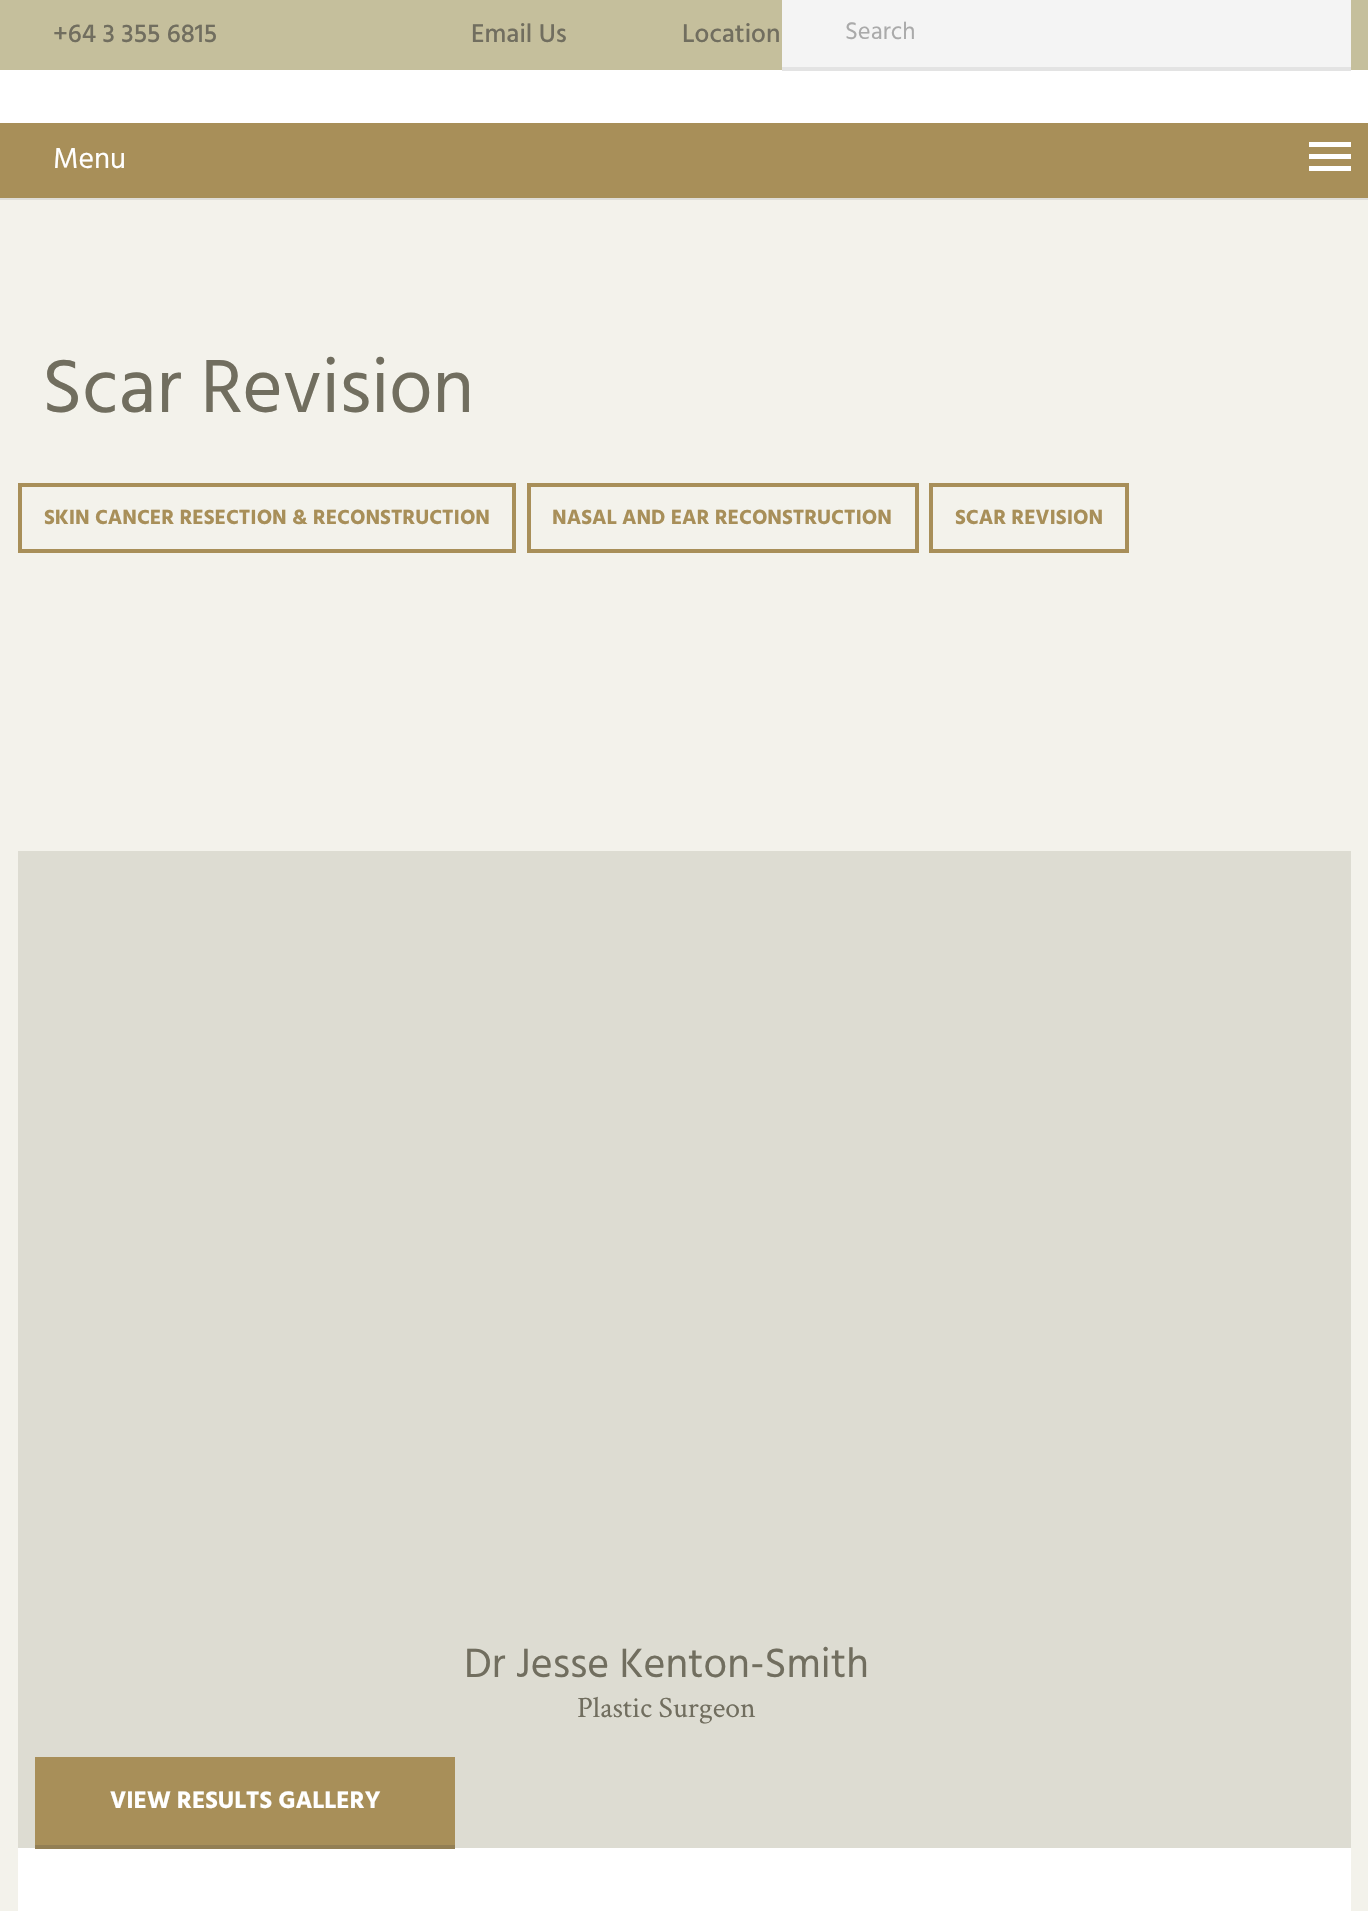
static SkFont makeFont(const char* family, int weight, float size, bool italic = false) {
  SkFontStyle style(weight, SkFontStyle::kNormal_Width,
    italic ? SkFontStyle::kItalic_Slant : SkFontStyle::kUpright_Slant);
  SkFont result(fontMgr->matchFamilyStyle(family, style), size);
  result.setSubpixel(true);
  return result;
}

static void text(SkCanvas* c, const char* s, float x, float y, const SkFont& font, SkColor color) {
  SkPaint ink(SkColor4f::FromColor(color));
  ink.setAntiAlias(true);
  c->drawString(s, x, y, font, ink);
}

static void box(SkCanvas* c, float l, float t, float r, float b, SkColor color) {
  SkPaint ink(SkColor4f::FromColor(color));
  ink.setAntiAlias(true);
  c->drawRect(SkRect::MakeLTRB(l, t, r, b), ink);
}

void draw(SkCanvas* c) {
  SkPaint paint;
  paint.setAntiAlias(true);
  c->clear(0xffffffff);
  box(c, 0, 198, 1368, 200, 0xffdfddd8);
  box(c, 0, 0, 1368, 70, 0xffc5bf9c);
  SkFont face1 = makeFont("Hind", 500, 26.25f);
  text(c, "+64 3 355 6815", 53, 42, face1, 0xff716e5f);
  text(c, "Email Us", 471, 42, face1, 0xff716e5f);
  text(c, "Location", 682, 42, face1, 0xff716e5f);
  box(c, 782, 0, 1351, 67, 0xfff4f4f4);
  box(c, 782, 67, 1351, 71, 0xffe3e3e3);
  SkFont face2 = makeFont("Hind", 400, 24.5f);
  text(c, "Search", 845, 39, face2, 0xffaaaaaa);
  box(c, 0, 123, 1368, 198, 0xffa88f59);
  SkFont face3 = makeFont("Hind", 400, 29.75f);
  text(c, "Menu", 53, 168, face3, 0xffffffff);
  box(c, 1309, 142, 1351, 147, 0xffffffff);
  box(c, 1309, 154, 1351, 159, 0xffffffff);
  box(c, 1309, 166, 1351, 171, 0xffffffff);
  box(c, 0, 200, 1368, 1911, 0xfff3f2eb);
  SkFont face4 = makeFont("Hind", 400, 77);
  text(c, "Scar Revision", 42, 412, face4, 0xff716e5f);
  paint.setStyle(SkPaint::kStroke_Style);
  paint.setStrokeWidth(4);
  paint.setColor(0xffa88f59);
  c->drawRect(SkRect::MakeLTRB(20, 485, 514, 551), paint);
  SkFont face5 = makeFont("Hind", 700, 21);
  text(c, "SKIN CANCER RESECTION & RECONSTRUCTION", 44, 524, face5, 0xffa88f59);
  c->drawRect(SkRect::MakeLTRB(529, 485, 917, 551), paint);
  text(c, "NASAL AND EAR RECONSTRUCTION", 552, 524, face5, 0xffa88f59);
  c->drawRect(SkRect::MakeLTRB(931, 485, 1127, 551), paint);
  text(c, "SCAR REVISION", 955, 524, face5, 0xffa88f59);
  box(c, 18, 851, 1351, 1848, 0xffdddcd2);
  SkFont face6 = makeFont("Hind", 400, 42);
  text(c, "Dr Jesse Kenton-Smith", 464, 1677, face6, 0xff716e5f);
  SkFont face7 = makeFont("Crimson Text", 400, 29.75f);
  text(c, "Plastic Surgeon", 577, 1717, face7, 0xff716e5f);
  box(c, 35, 1757, 455, 1845, 0xffa88f59);
  box(c, 18, 1848, 1351, 1911, 0xffffffff);
  box(c, 35, 1845, 455, 1849, 0xff937f54);
  SkFont face8 = makeFont("Hind", 700, 24.5f);
  text(c, "VIEW RESULTS GALLERY", 110, 1808, face8, 0xffffffff);
}
